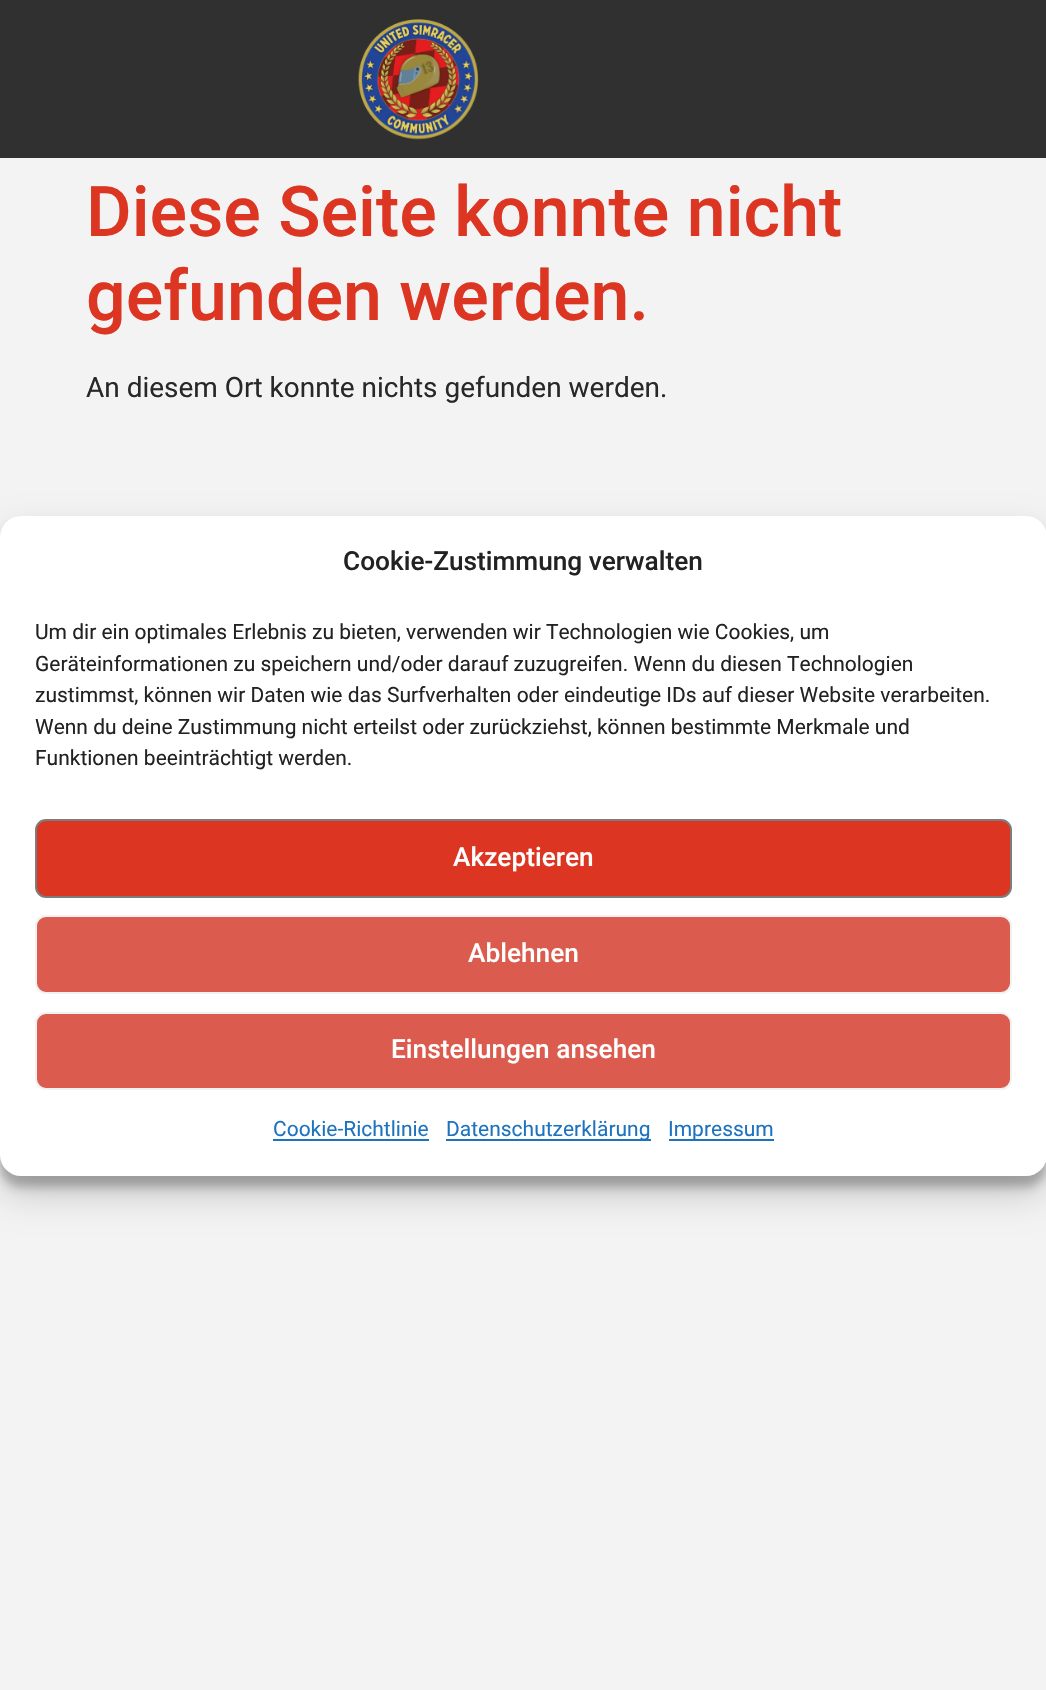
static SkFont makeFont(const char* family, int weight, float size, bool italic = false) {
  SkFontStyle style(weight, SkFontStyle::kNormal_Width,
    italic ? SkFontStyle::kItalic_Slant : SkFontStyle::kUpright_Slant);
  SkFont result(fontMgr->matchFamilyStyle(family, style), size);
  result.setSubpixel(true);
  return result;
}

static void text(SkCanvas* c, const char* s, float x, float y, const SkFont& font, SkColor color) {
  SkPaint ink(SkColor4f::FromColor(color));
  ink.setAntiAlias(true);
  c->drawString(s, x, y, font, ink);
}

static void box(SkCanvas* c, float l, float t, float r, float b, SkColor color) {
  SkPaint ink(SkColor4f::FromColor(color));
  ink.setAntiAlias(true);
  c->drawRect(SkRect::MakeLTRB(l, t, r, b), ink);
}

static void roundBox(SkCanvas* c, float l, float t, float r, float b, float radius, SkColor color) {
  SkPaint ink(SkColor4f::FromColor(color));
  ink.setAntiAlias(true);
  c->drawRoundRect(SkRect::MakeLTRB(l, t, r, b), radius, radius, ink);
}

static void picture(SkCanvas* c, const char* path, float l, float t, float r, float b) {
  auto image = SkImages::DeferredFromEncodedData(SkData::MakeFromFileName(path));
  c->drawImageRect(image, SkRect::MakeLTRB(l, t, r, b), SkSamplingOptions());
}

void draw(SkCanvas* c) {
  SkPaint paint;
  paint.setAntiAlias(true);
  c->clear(0xfff3f3f3);
  box(c, 0, 0, 1046, 158, 0xff303030);
  picture(c, "img_01.png", 358, 19, 479, 140);
  SkFont face1 = makeFont("Roboto", 500, 70);
  text(c, "Diese Seite konnte nicht", 86, 236, face1, 0xffdc3522);
  text(c, "gefunden werden.", 86, 320, face1, 0xffdc3522);
  SkFont face2 = makeFont("Roboto", 400, 28);
  text(c, "An diesem Ort konnte nichts gefunden werden.", 86, 397, face2, 0xff282828);
  paint.setColor(0x3b000000);
  paint.setMaskFilter(SkMaskFilter::MakeBlur(kNormal_SkBlurStyle, 5));
  c->drawRoundRect(SkRect::MakeLTRB(0, 527, 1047, 1187), 21, 21, paint);
  paint.setMaskFilter(nullptr);
  paint.setColor(0x30000000);
  paint.setMaskFilter(SkMaskFilter::MakeBlur(kNormal_SkBlurStyle, 17.5f));
  c->drawRoundRect(SkRect::MakeLTRB(0, 534, 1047, 1194), 21, 21, paint);
  paint.setMaskFilter(nullptr);
  roundBox(c, 0, 516, 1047, 1176, 21, 0xffffffff);
  SkFont face3 = makeFont("Roboto", 500, 26.25f);
  text(c, "Cookie-Zustimmung verwalten", 343, 570, face3, 0xff222222);
  SkFont face4 = makeFont("Roboto", 400, 21);
  text(c, "Um dir ein optimales Erlebnis zu bieten, verwenden wir Technologien wie Cookies, um", 35, 639, face4, 0xff222222);
  text(c, "Geräteinformationen zu speichern und/oder darauf zuzugreifen. Wenn du diesen Technologien", 35, 671, face4, 0xff222222);
  text(c, "zustimmst, können wir Daten wie das Surfverhalten oder eindeutige IDs auf dieser Website verarbeiten.", 35, 702, face4, 0xff222222);
  text(c, "Wenn du deine Zustimmung nicht erteilst oder zurückziehst, können bestimmte Merkmale und", 35, 734, face4, 0xff222222);
  text(c, "Funktionen beeinträchtigt werden.", 35, 765, face4, 0xff222222);
  paint.setColor(0xffdc3522);
  c->drawRoundRect(SkRect::MakeLTRB(36, 820, 1011, 897), 10, 10, paint);
  paint.setStyle(SkPaint::kStroke_Style);
  paint.setStrokeWidth(2);
  paint.setColor(0xff7c7c7c);
  c->drawRoundRect(SkRect::MakeLTRB(36, 820, 1011, 897), 10, 10, paint);
  text(c, "Akzeptieren", 453, 866, face3, 0xffffffff);
  paint.setStyle(SkPaint::kFill_Style);
  paint.setColor(0xffdb5c4e);
  c->drawRoundRect(SkRect::MakeLTRB(36, 916, 1011, 993), 10, 10, paint);
  paint.setStyle(SkPaint::kStroke_Style);
  paint.setColor(0xfff2f2f2);
  c->drawRoundRect(SkRect::MakeLTRB(36, 916, 1011, 993), 10, 10, paint);
  text(c, "Ablehnen", 468, 962, face3, 0xffffffff);
  paint.setStyle(SkPaint::kFill_Style);
  paint.setColor(0xffdb5c4e);
  c->drawRoundRect(SkRect::MakeLTRB(36, 1013, 1011, 1089), 10, 10, paint);
  paint.setStyle(SkPaint::kStroke_Style);
  paint.setColor(0xfff2f2f2);
  c->drawRoundRect(SkRect::MakeLTRB(36, 1013, 1011, 1089), 10, 10, paint);
  text(c, "Einstellungen ansehen", 391, 1058, face3, 0xffffffff);
  text(c, "Cookie-Richtlinie", 273, 1136, face4, 0xff1e73be);
  box(c, 273, 1139, 429, 1141, 0xff1e73be);
  box(c, 446, 1139, 651, 1141, 0xff1e73be);
  text(c, "Datenschutzerklärung", 446, 1136, face4, 0xff1e73be);
  box(c, 669, 1139, 774, 1141, 0xff1e73be);
  text(c, "Impressum", 668, 1136, face4, 0xff1e73be);
}
